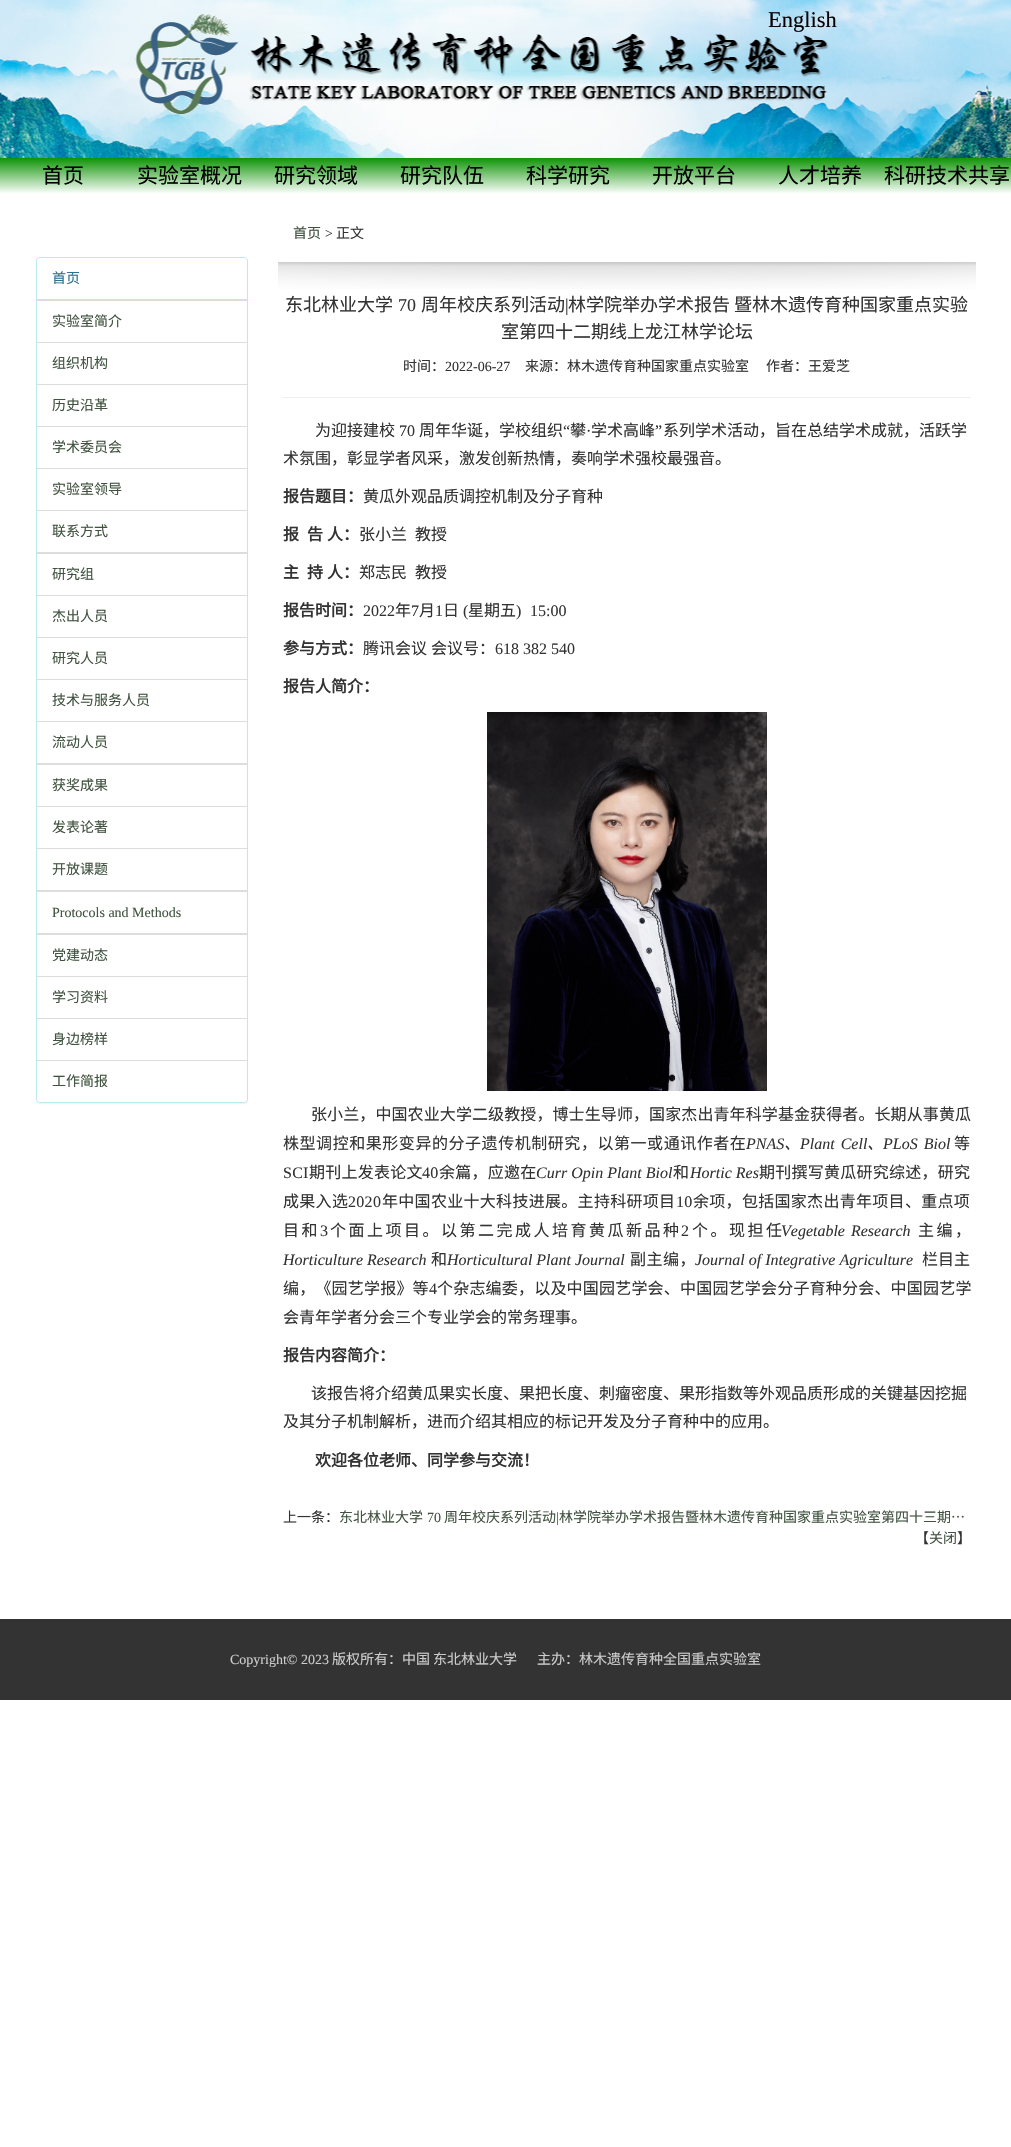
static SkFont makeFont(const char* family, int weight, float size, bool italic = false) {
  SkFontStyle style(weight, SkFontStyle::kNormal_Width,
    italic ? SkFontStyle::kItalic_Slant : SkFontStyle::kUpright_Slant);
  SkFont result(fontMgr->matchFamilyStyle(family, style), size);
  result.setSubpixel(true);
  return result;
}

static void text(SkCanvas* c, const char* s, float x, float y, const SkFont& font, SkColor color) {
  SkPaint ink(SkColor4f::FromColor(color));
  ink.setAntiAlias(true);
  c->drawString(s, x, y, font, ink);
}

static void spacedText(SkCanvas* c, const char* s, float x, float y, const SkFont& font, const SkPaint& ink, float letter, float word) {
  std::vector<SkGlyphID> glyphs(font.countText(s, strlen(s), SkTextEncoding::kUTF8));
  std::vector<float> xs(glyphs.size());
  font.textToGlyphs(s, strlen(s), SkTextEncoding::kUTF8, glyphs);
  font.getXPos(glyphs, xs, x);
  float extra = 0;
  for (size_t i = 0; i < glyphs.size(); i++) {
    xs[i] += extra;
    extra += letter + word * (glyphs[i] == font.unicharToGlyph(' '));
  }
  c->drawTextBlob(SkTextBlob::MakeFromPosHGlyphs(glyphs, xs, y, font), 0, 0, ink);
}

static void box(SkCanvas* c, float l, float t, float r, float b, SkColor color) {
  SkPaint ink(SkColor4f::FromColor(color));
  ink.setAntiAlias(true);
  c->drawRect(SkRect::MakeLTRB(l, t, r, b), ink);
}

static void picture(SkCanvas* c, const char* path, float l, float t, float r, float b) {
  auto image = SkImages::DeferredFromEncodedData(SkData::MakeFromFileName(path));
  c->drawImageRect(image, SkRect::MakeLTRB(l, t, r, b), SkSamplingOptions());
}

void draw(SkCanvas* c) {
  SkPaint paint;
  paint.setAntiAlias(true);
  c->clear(0xffffffff);
  picture(c, "img_01.png", 0, 0, 1011, 158);
  SkFont face1 = makeFont("Liberation Serif", 400, 22.5f);
  text(c, "English", 768, 27, face1, 0xff000000);
  {
    const SkColor colors[] = {0xff0f9306, 0xffffffff};
    const float stops[] = {0, 1};
    const SkPoint ends[] = {{0, 158}, {0, 194}};
    paint.setShader(SkGradientShader::MakeLinear(ends, colors, stops, 2, SkTileMode::kClamp));
    paint.setAlpha(255);
  }
  c->drawRect(SkRect::MakeLTRB(0, 158, 1011, 194), paint);
  SkFont face2 = makeFont("Noto Sans CJK SC", 400, 21);
  text(c, "首页", 42, 183, face2, 0xff000000);
  text(c, "实验室概况", 137, 183, face2, 0xff000000);
  text(c, "研究领域", 274, 183, face2, 0xff000000);
  text(c, "研究队伍", 400, 183, face2, 0xff000000);
  text(c, "科学研究", 526, 183, face2, 0xff000000);
  text(c, "开放平台", 652, 183, face2, 0xff000000);
  text(c, "人才培养", 778, 183, face2, 0xff000000);
  text(c, "科研技术共享", 884, 183, face2, 0xff000000);
  paint.setShader(nullptr);
  paint.setColor(0x0d000000);
  paint.setMaskFilter(SkMaskFilter::MakeBlur(kNormal_SkBlurStyle, 0.5f));
  c->drawRoundRect(SkRect::MakeLTRB(36, 258, 248, 1104), 4, 4, paint);
  paint.setMaskFilter(nullptr);
  paint.setColor(0xffffffff);
  c->drawRoundRect(SkRect::MakeLTRB(36.5f, 257.5f, 247.5f, 1102.5f), 3.5f, 3.5f, paint);
  paint.setStyle(SkPaint::kStroke_Style);
  paint.setStrokeWidth(1);
  paint.setColor(0xffbce8f1);
  c->drawRoundRect(SkRect::MakeLTRB(36.5f, 257.5f, 247.5f, 1102.5f), 3.5f, 3.5f, paint);
  paint.setStyle(SkPaint::kFill_Style);
  paint.setColor(0xffffffff);
  c->drawPath(SkPathBuilder().moveTo(40, 258).lineTo(244, 258).cubicTo(245.5f, 258, 247, 259.5f, 247, 261).lineTo(247, 300).lineTo(37, 300).lineTo(37, 261).cubicTo(37, 259.5f, 38.5f, 258, 40, 258).close().detach(), paint);
  box(c, 37, 299, 247, 300, 0xffbce8f1);
  SkFont face3 = makeFont("Noto Sans CJK SC", 400, 14);
  text(c, "首页", 52, 283, face3, 0xff31708f);
  box(c, 37, 300, 247, 301, 0xffdddddd);
  box(c, 37, 342, 247, 343, 0xffdddddd);
  text(c, "实验室简介", 52, 326, face3, 0xff415340);
  box(c, 37, 384, 247, 385, 0xffdddddd);
  text(c, "组织机构", 52, 368, face3, 0xff415340);
  box(c, 37, 426, 247, 427, 0xffdddddd);
  text(c, "历史沿革", 52, 410, face3, 0xff415340);
  box(c, 37, 468, 247, 469, 0xffdddddd);
  text(c, "学术委员会", 52, 452, face3, 0xff415340);
  box(c, 37, 510, 247, 511, 0xffdddddd);
  text(c, "实验室领导", 52, 494, face3, 0xff415340);
  box(c, 37, 552, 247, 554, 0xffdddddd);
  text(c, "联系方式", 52, 536, face3, 0xff415340);
  box(c, 37, 595, 247, 596, 0xffdddddd);
  text(c, "研究组", 52, 579, face3, 0xff415340);
  box(c, 37, 637, 247, 638, 0xffdddddd);
  text(c, "杰出人员", 52, 621, face3, 0xff415340);
  box(c, 37, 679, 247, 680, 0xffdddddd);
  text(c, "研究人员", 52, 663, face3, 0xff415340);
  box(c, 37, 721, 247, 722, 0xffdddddd);
  text(c, "技术与服务人员", 52, 705, face3, 0xff415340);
  box(c, 37, 763, 247, 765, 0xffdddddd);
  text(c, "流动人员", 52, 747, face3, 0xff415340);
  box(c, 37, 806, 247, 807, 0xffdddddd);
  text(c, "获奖成果", 52, 790, face3, 0xff415340);
  box(c, 37, 848, 247, 849, 0xffdddddd);
  text(c, "发表论著", 52, 832, face3, 0xff415340);
  box(c, 37, 890, 247, 892, 0xffdddddd);
  text(c, "开放课题", 52, 874, face3, 0xff415340);
  box(c, 37, 933, 247, 935, 0xffdddddd);
  SkFont face4 = makeFont("Liberation Serif", 400, 14);
  text(c, "Protocols and Methods", 52, 917, face4, 0xff415340);
  box(c, 37, 976, 247, 977, 0xffdddddd);
  text(c, "党建动态", 52, 960, face3, 0xff415340);
  box(c, 37, 1018, 247, 1019, 0xffdddddd);
  text(c, "学习资料", 52, 1002, face3, 0xff415340);
  text(c, "身边榜样", 52, 1044, face3, 0xff415340);
  c->drawPath(SkPathBuilder().moveTo(37, 1060).lineTo(247, 1060).lineTo(247, 1099).cubicTo(247, 1100.5f, 245.5f, 1102, 244, 1102).lineTo(40, 1102).cubicTo(38.5f, 1102, 37, 1100.5f, 37, 1099).close().detach(), paint);
  box(c, 37, 1060, 247, 1061, 0xffdddddd);
  text(c, "工作简报", 52, 1086, face3, 0xff415340);
  text(c, "首页", 293, 238, face3, 0xff415340);
  text(c, ">", 325, 238, face4, 0xff333333);
  text(c, "正文", 336, 238, face3, 0xff333333);
  picture(c, "img_02.png", 278, 262, 976, 289);
  SkFont face5 = makeFont("Noto Sans CJK SC", 400, 18);
  text(c, "东北林业大学", 285, 311, face5, 0xff333333);
  SkFont face6 = makeFont("Liberation Serif", 400, 18);
  text(c, "70", 398, 311, face6, 0xff333333);
  text(c, "周年校庆系列活动", 421, 311, face5, 0xff333333);
  text(c, "|", 565, 311, face6, 0xff333333);
  text(c, "林学院举办学术报告 暨林木遗传育种国家重点实验", 568, 311, face5, 0xff333333);
  text(c, "室第四十二期线上龙江林学论坛", 501, 338, face5, 0xff333333);
  text(c, "时间：", 403, 371, face3, 0xff333333);
  text(c, "2022-06-27", 445, 371, face4, 0xff333333);
  text(c, "来源：林木遗传育种国家重点实验室", 525, 371, face3, 0xff333333);
  text(c, "作者：王爱芝", 766, 371, face3, 0xff333333);
  box(c, 283, 397, 971, 398, 0xffeeeeee);
  SkFont face7 = makeFont("Noto Sans CJK SC", 400, 16);
  text(c, "为迎接建校", 315, 436, face7, 0xff333333);
  SkFont face8 = makeFont("Liberation Serif", 400, 16);
  text(c, "70", 399, 436, face8, 0xff333333);
  text(c, "周年华诞，学校组织", 419, 436, face7, 0xff333333);
  text(c, "“", 563, 436, face8, 0xff333333);
  text(c, "攀", 570, 436, face7, 0xff333333);
  text(c, "学术高峰", 591, 436, face7, 0xff333333);
  text(c, "”", 655, 436, face8, 0xff333333);
  text(c, "系列学术活动，旨在总结学术成就，活跃学", 663, 436, face7, 0xff333333);
  text(c, "·", 586, 436, face8, 0xff333333);
  text(c, "术氛围，彰显学者风采，激发创新热情，奏响学术强校最强音。", 283, 464, face7, 0xff333333);
  SkFont face9 = makeFont("Noto Sans CJK SC", 700, 16);
  text(c, "报告题目：", 283, 502, face9, 0xff333333);
  text(c, "黄瓜外观品质调控机制及分子育种", 363, 502, face7, 0xff333333);
  text(c, "报", 283, 540, face9, 0xff333333);
  text(c, "告", 307, 540, face9, 0xff333333);
  text(c, "人：", 327, 540, face9, 0xff333333);
  text(c, "张小兰", 359, 540, face7, 0xff333333);
  text(c, "教授", 415, 540, face7, 0xff333333);
  text(c, "主", 283, 578, face9, 0xff333333);
  text(c, "持", 307, 578, face9, 0xff333333);
  text(c, "人：", 327, 578, face9, 0xff333333);
  text(c, "郑志民", 359, 578, face7, 0xff333333);
  text(c, "教授", 415, 578, face7, 0xff333333);
  text(c, "报告时间：", 283, 616, face9, 0xff333333);
  text(c, "2022", 363, 616, face8, 0xff333333);
  text(c, "年", 395, 616, face7, 0xff333333);
  text(c, "7", 411, 616, face8, 0xff333333);
  text(c, "月", 419, 616, face7, 0xff333333);
  text(c, "1", 435, 616, face8, 0xff333333);
  text(c, "日", 443, 616, face7, 0xff333333);
  text(c, "(", 463, 616, face8, 0xff333333);
  text(c, "星期五", 468, 616, face7, 0xff333333);
  text(c, ")", 516, 616, face8, 0xff333333);
  text(c, "15:00", 530, 616, face8, 0xff333333);
  text(c, "参与方式：", 283, 654, face9, 0xff333333);
  text(c, "腾讯会议", 363, 654, face7, 0xff333333);
  text(c, "会议号：", 431, 654, face7, 0xff333333);
  text(c, "618 382 540", 495, 654, face8, 0xff333333);
  text(c, "报告人简介：", 283, 692, face9, 0xff333333);
  picture(c, "img_03.png", 487, 712, 767, 1091);
  paint.setColor(0xff333333);
  spacedText(c, "张小兰，中国农业大学二级教授，博士生导师，国家杰出青年科学基金获得者。长期从事黄瓜", 311, 1120, face7, paint, 0.1f, 0);
  spacedText(c, "株型调控和果形变异的分子遗传机制研究，以第一或通讯作者在", 283, 1149, face7, paint, 0.55f, 0);
  SkFont face10 = makeFont("Liberation Serif", 400, 16, true);
  text(c, "PNAS", 746, 1149, face10, 0xff333333);
  SkFont face11 = makeFont("Noto Sans CJK SC", 400, 16, true);
  text(c, "、", 784, 1149, face11, 0xff333333);
  spacedText(c, "Plant Cell", 800, 1149, face10, paint, 0, 2);
  text(c, "、", 867, 1149, face11, 0xff333333);
  spacedText(c, "PLoS Biol", 883, 1149, face10, paint, 0, 2);
  text(c, "等", 954, 1149, face7, 0xff333333);
  spacedText(c, "SCI", 283, 1178, face8, paint, 0.25f, 0);
  spacedText(c, "期刊上发表论文", 309, 1178, face7, paint, 0.25f, 0);
  spacedText(c, "40", 422, 1178, face8, paint, 0.25f, 0);
  spacedText(c, "余篇，应邀在", 439, 1178, face7, paint, 0.25f, 0);
  text(c, "Curr Opin Plant Biol", 536, 1178, face10, 0xff333333);
  text(c, "和", 673, 1178, face7, 0xff333333);
  text(c, "Hortic Res", 690, 1178, face10, 0xff333333);
  spacedText(c, "期刊撰写黄瓜研究综述，研究", 759, 1178, face7, paint, 0.25f, 0);
  spacedText(c, "成果入选", 283, 1207, face7, paint, 0.3f, 0);
  spacedText(c, "2020", 348, 1207, face8, paint, 0.3f, 0);
  spacedText(c, "年中国农业十大科技进展。主持科研项目", 382, 1207, face7, paint, 0.3f, 0);
  spacedText(c, "10", 676, 1207, face8, paint, 0.3f, 0);
  spacedText(c, "余项，包括国家杰出青年项目、重点项", 693, 1207, face7, paint, 0.3f, 0);
  spacedText(c, "目和", 283, 1236, face7, paint, 2.5f, 0);
  spacedText(c, "3", 320, 1236, face8, paint, 2.5f, 0);
  spacedText(c, "个面上项目。以第二完成人培育黄瓜新品种", 330, 1236, face7, paint, 2.5f, 0);
  spacedText(c, "2", 681, 1236, face8, paint, 2.5f, 0);
  spacedText(c, "个。现担任", 692, 1236, face7, paint, 2.5f, 0);
  spacedText(c, "Vegetable Research", 781, 1236, face10, paint, 0, 2);
  spacedText(c, "主编，", 918, 1236, face7, paint, 2.5f, 0);
  text(c, "Horticulture Research", 283, 1265, face10, 0xff333333);
  text(c, "和", 431, 1265, face7, 0xff333333);
  text(c, "Horticultural Plant Journal", 447, 1265, face10, 0xff333333);
  spacedText(c, "副主编，", 630, 1265, face7, paint, 0.5f, 0);
  text(c, "Journal of Integrative Agriculture", 695, 1265, face10, 0xff333333);
  text(c, "栏目主", 922, 1265, face7, 0xff333333);
  spacedText(c, "编，《园艺学报》等", 283, 1294, face7, paint, 0.2f, 0);
  spacedText(c, "4", 429, 1294, face8, paint, 0.2f, 0);
  spacedText(c, "个杂志编委，以及中国园艺学会、中国园艺学会分子育种分会、中国园艺学", 437, 1294, face7, paint, 0.2f, 0);
  text(c, "会青年学者分会三个专业学会的常务理事。", 283, 1323, face7, 0xff333333);
  text(c, "报告内容简介：", 283, 1361, face9, 0xff333333);
  text(c, "该报告将介绍黄瓜果实长度、果把长度、刺瘤密度、果形指数等外观品质形成的关键基因挖掘", 311, 1399, face7, 0xff333333);
  text(c, "及其分子机制解析，进而介绍其相应的标记开发及分子育种中的应用。", 283, 1427, face7, 0xff333333);
  text(c, "欢迎各位老师、同学参与交流！", 315, 1466, face9, 0xff333333);
  text(c, "上一条：", 283, 1522, face3, 0xff333333);
  text(c, "东北林业大学", 339, 1522, face3, 0xff415340);
  text(c, "70", 427, 1522, face4, 0xff415340);
  text(c, "周年校庆系列活动", 444, 1522, face3, 0xff415340);
  text(c, "|", 556, 1522, face4, 0xff415340);
  text(c, "林学院举办学术报告暨林木遗传育种国家重点实验室第四十三期…", 559, 1522, face3, 0xff415340);
  text(c, "【", 915, 1543, face3, 0xff333333);
  text(c, "关闭", 929, 1543, face3, 0xff415340);
  text(c, "】", 957, 1543, face3, 0xff333333);
  box(c, 0, 1619, 1011, 1700, 0xff333333);
  text(c, "Copyright© 2023", 230, 1664, face4, 0xffcccccc);
  text(c, "版权所有：中国", 332, 1664, face3, 0xffcccccc);
  text(c, "东北林业大学", 433, 1664, face3, 0xffcccccc);
  text(c, "主办：林木遗传育种全国重点实验室", 537, 1664, face3, 0xffcccccc);
}
